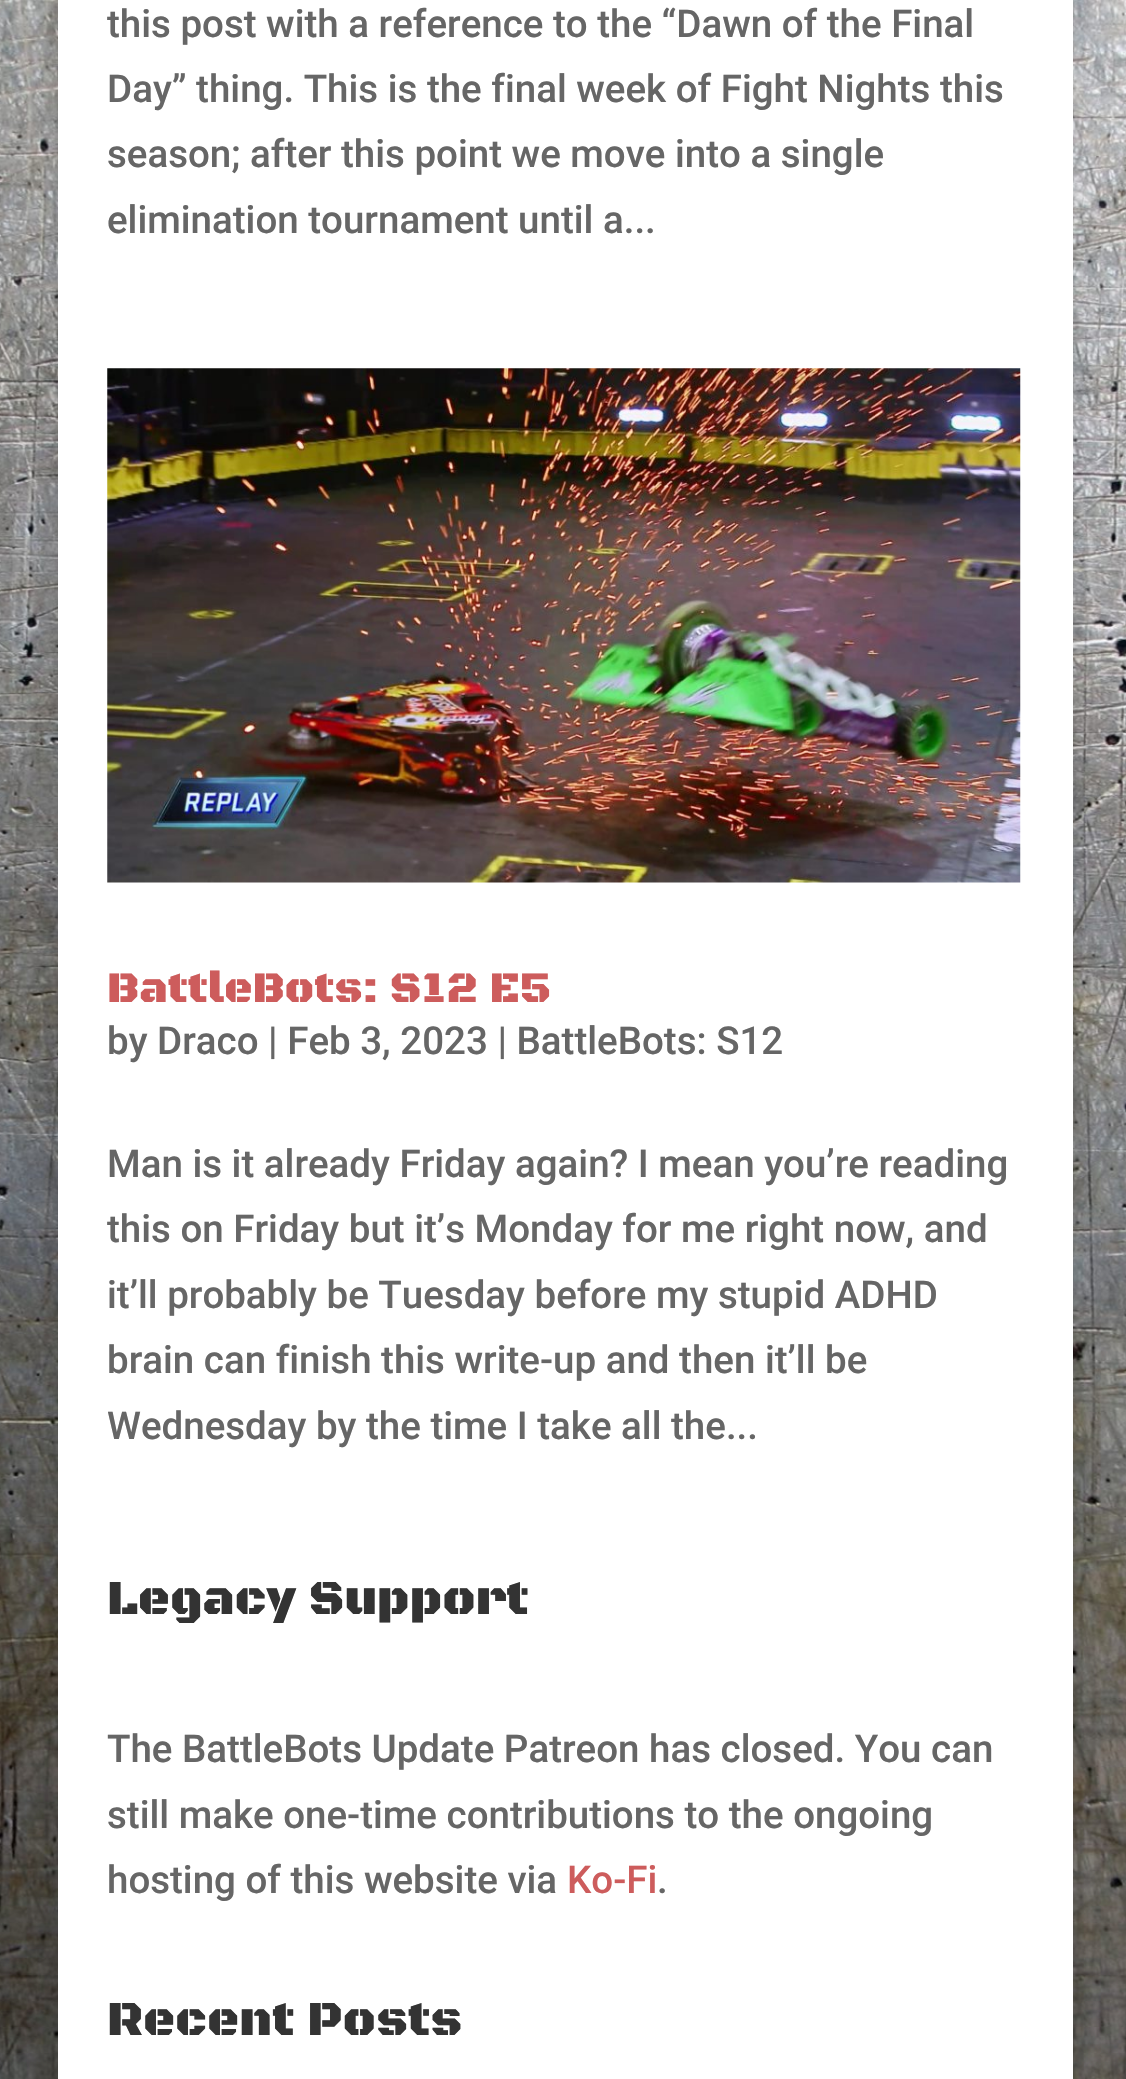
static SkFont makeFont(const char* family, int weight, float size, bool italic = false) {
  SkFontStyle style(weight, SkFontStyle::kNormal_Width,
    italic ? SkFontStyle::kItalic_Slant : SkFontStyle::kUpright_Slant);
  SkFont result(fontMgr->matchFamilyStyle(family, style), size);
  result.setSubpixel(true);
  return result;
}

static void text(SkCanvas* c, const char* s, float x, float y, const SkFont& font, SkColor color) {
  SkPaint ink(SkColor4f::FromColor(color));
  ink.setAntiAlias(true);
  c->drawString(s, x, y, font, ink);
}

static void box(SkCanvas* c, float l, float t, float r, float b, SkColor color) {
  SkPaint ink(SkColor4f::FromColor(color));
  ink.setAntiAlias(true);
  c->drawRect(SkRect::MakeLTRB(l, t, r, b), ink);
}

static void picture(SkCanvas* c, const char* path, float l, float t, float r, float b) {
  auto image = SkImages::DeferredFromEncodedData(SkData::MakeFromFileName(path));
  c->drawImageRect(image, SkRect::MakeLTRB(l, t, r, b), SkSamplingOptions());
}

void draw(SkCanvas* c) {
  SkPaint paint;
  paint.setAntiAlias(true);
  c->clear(0xffffffff);
  picture(c, "img_01.png", 0, 0, 1126, 2079);
  paint.setColor(0x33000000);
  paint.setMaskFilter(SkMaskFilter::MakeBlur(kNormal_SkBlurStyle, 14));
  c->drawRect(SkRect::MakeLTRB(58, -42, 1073, 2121), paint);
  paint.setMaskFilter(nullptr);
  box(c, 58, 0, 1073, 2079, 0xffffffff);
  SkFont face1 = makeFont("Roboto", 500, 38.5f);
  text(c, "this post with a reference to the “Dawn of the Final", 107, 37, face1, 0xff666666);
  text(c, "Day” thing. This is the final week of Fight Nights this", 107, 102, face1, 0xff666666);
  text(c, "season; after this point we move into a single", 107, 167, face1, 0xff666666);
  text(c, "elimination tournament until a...", 107, 233, face1, 0xff666666);
  picture(c, "img_02.png", 107, 368, 1021, 883);
  SkFont face2 = makeFont("Black Ops One", 900, 44);
  text(c, "BattleBots: S12 E5", 107, 1002, face2, 0xffcd5c5c);
  text(c, "by Draco | Feb 3, 2023 | BattleBots: S12", 107, 1054, face1, 0xff666666);
  text(c, "Man is it already Friday again? I mean you’re reading", 107, 1177, face1, 0xff666666);
  text(c, "this on Friday but it’s Monday for me right now, and", 107, 1242, face1, 0xff666666);
  text(c, "it’ll probably be Tuesday before my stupid ADHD", 107, 1308, face1, 0xff666666);
  text(c, "brain can finish this write-up and then it’ll be", 107, 1373, face1, 0xff666666);
  text(c, "Wednesday by the time I take all the...", 107, 1439, face1, 0xff666666);
  SkFont face3 = makeFont("Black Ops One", 900, 49.5f);
  text(c, "Legacy Support", 107, 1614, face3, 0xff333333);
  text(c, "The BattleBots Update Patreon has closed. You can", 107, 1762, face1, 0xff666666);
  text(c, "still make one-time contributions to the ongoing", 107, 1828, face1, 0xff666666);
  text(c, "hosting of this website via", 107, 1893, face1, 0xff666666);
  text(c, "Ko-Fi", 567, 1893, face1, 0xffcd5c5c);
  text(c, ".", 657, 1893, face1, 0xff666666);
  text(c, "Recent Posts", 107, 2035, face3, 0xff333333);
}
